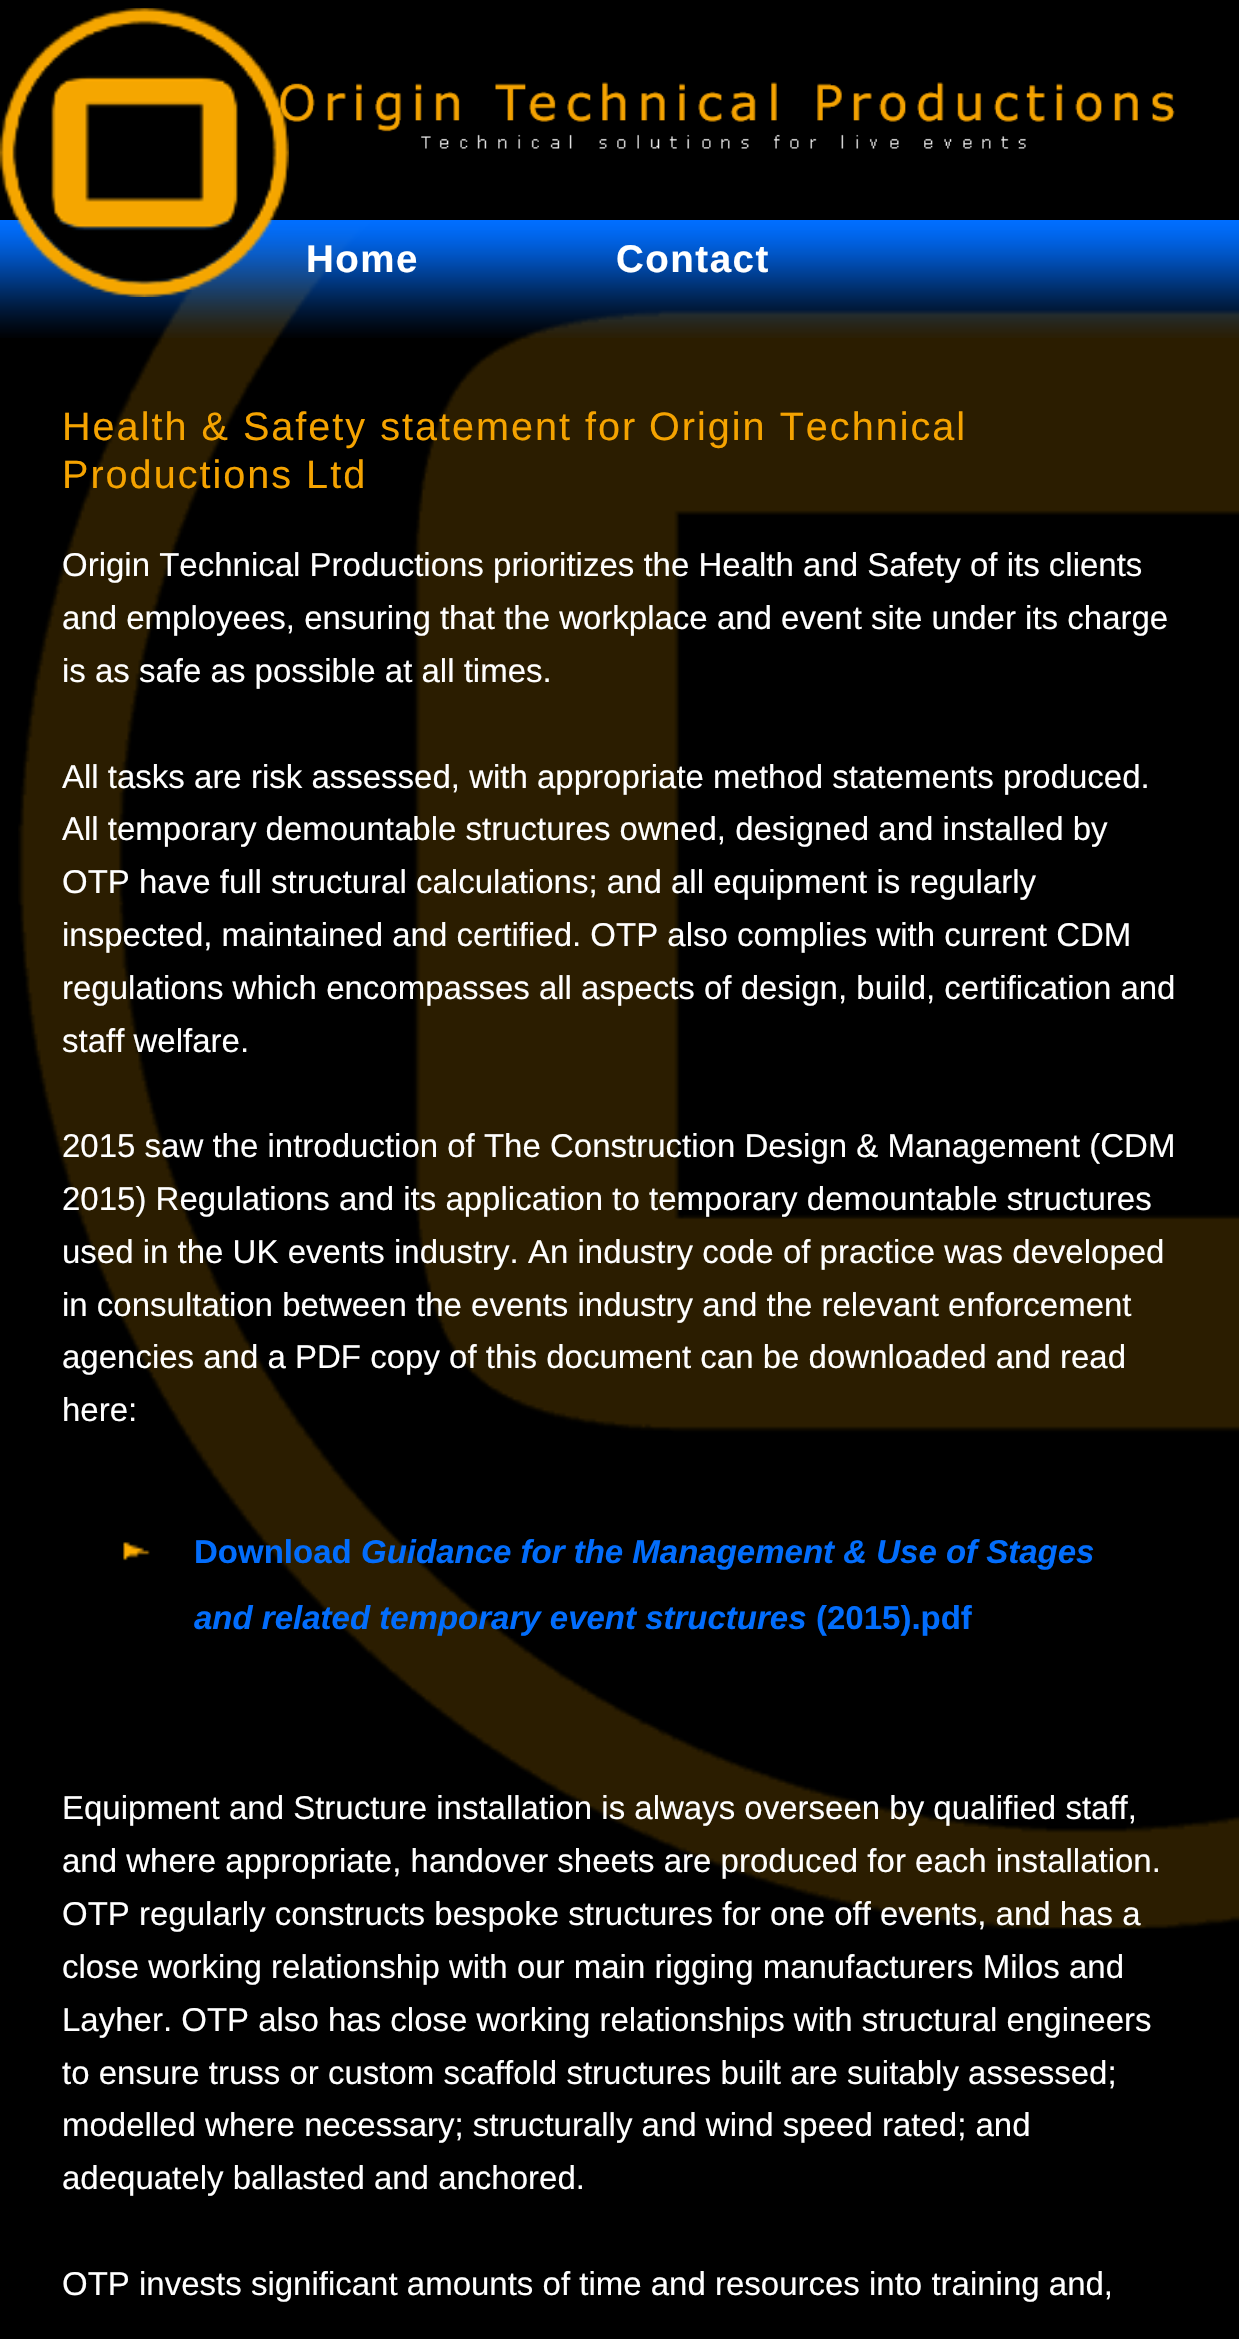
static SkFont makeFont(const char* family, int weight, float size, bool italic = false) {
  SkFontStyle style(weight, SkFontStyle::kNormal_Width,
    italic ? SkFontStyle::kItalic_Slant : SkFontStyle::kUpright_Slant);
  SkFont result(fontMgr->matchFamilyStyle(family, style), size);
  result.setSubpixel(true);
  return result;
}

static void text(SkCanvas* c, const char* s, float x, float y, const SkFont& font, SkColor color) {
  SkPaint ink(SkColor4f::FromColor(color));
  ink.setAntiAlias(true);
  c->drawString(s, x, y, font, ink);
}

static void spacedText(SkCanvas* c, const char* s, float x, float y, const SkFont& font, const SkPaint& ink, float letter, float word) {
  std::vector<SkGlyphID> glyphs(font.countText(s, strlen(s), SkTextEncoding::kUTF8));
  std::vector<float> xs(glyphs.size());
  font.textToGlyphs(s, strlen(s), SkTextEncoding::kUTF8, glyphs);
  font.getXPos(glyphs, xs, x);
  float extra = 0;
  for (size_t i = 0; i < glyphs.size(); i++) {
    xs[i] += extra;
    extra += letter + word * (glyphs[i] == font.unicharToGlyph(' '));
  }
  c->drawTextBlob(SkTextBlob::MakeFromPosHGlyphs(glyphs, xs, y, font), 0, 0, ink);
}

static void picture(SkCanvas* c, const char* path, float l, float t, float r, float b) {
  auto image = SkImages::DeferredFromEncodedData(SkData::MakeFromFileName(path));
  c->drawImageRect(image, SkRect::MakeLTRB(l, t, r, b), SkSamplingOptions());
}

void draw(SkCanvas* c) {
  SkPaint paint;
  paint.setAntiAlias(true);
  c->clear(0xff000000);
  picture(c, "img_02.png", 280, 82, 1175, 149);
  picture(c, "img_03.png", 18, 222, 1239, 1929);
  picture(c, "img_04.png", 0, 220, 1239, 338);
  picture(c, "img_01.png", 0, 8, 289, 297);
  SkFont face1 = makeFont("Liberation Sans", 700, 38.5f);
  paint.setColor(0xffffffff);
  spacedText(c, "Home", 306, 272, face1, paint, 1.5f, 0);
  spacedText(c, "Contact", 616, 272, face1, paint, 1.5f, 0);
  SkFont face2 = makeFont("Liberation Sans", 400, 39.6f);
  paint.setColor(0xfff5a300);
  spacedText(c, "Health & Safety statement for", 62, 440, face2, paint, 2, 0);
  spacedText(c, "Origin Technical", 649, 440, face2, paint, 2, 0);
  spacedText(c, "Productions Ltd", 62, 488, face2, paint, 2, 0);
  SkFont face3 = makeFont("Liberation Sans", 400, 33);
  text(c, "Origin Technical Productions prioritizes the Health and Safety of its clients", 62, 576, face3, 0xffffffff);
  text(c, "and employees, ensuring that the workplace and event site under its charge", 62, 629, face3, 0xffffffff);
  text(c, "is as safe as possible at all times.", 62, 682, face3, 0xffffffff);
  text(c, "All tasks are risk assessed, with appropriate method statements produced.", 62, 788, face3, 0xffffffff);
  text(c, "All temporary demountable structures owned, designed and installed by", 62, 840, face3, 0xffffffff);
  text(c, "OTP have full structural calculations; and all equipment is regularly", 62, 893, face3, 0xffffffff);
  text(c, "inspected, maintained and certified. OTP also complies with current CDM", 62, 946, face3, 0xffffffff);
  text(c, "regulations which encompasses all aspects of design, build, certification and", 62, 999, face3, 0xffffffff);
  text(c, "staff welfare.", 62, 1052, face3, 0xffffffff);
  text(c, "2015 saw the introduction of The Construction Design & Management (CDM", 62, 1157, face3, 0xffffffff);
  text(c, "2015) Regulations and its application to temporary demountable structures", 62, 1210, face3, 0xffffffff);
  text(c, "used in the UK events industry. An industry code of practice was developed", 62, 1263, face3, 0xffffffff);
  text(c, "in consultation between the events industry and the relevant enforcement", 62, 1316, face3, 0xffffffff);
  text(c, "agencies and a PDF copy of this document can be downloaded and read", 62, 1368, face3, 0xffffffff);
  text(c, "here:", 62, 1421, face3, 0xffffffff);
  picture(c, "img_05.png", 123, 1542, 150, 1561);
  SkFont face4 = makeFont("Liberation Sans", 700, 33);
  text(c, "Download", 194, 1563, face4, 0xff026dfc);
  SkFont face5 = makeFont("Liberation Sans", 700, 33, true);
  text(c, "Guidance for the Management & Use of Stages", 361, 1563, face5, 0xff026dfc);
  text(c, "and related temporary event structures", 194, 1629, face5, 0xff026dfc);
  text(c, "(2015).pdf", 816, 1629, face4, 0xff026dfc);
  text(c, "Equipment and Structure installation is always overseen by qualified staff,", 62, 1819, face3, 0xffffffff);
  text(c, "and where appropriate, handover sheets are produced for each installation.", 62, 1872, face3, 0xffffffff);
  text(c, "OTP regularly constructs bespoke structures for one off events, and has a", 62, 1925, face3, 0xffffffff);
  text(c, "close working relationship with our main rigging manufacturers Milos and", 62, 1978, face3, 0xffffffff);
  text(c, "Layher. OTP also has close working relationships with structural engineers", 62, 2031, face3, 0xffffffff);
  text(c, "to ensure truss or custom scaffold structures built are suitably assessed;", 62, 2084, face3, 0xffffffff);
  text(c, "modelled where necessary; structurally and wind speed rated; and", 62, 2136, face3, 0xffffffff);
  text(c, "adequately ballasted and anchored.", 62, 2189, face3, 0xffffffff);
  text(c, "OTP invests significant amounts of time and resources into training and,", 62, 2295, face3, 0xffffffff);
}
